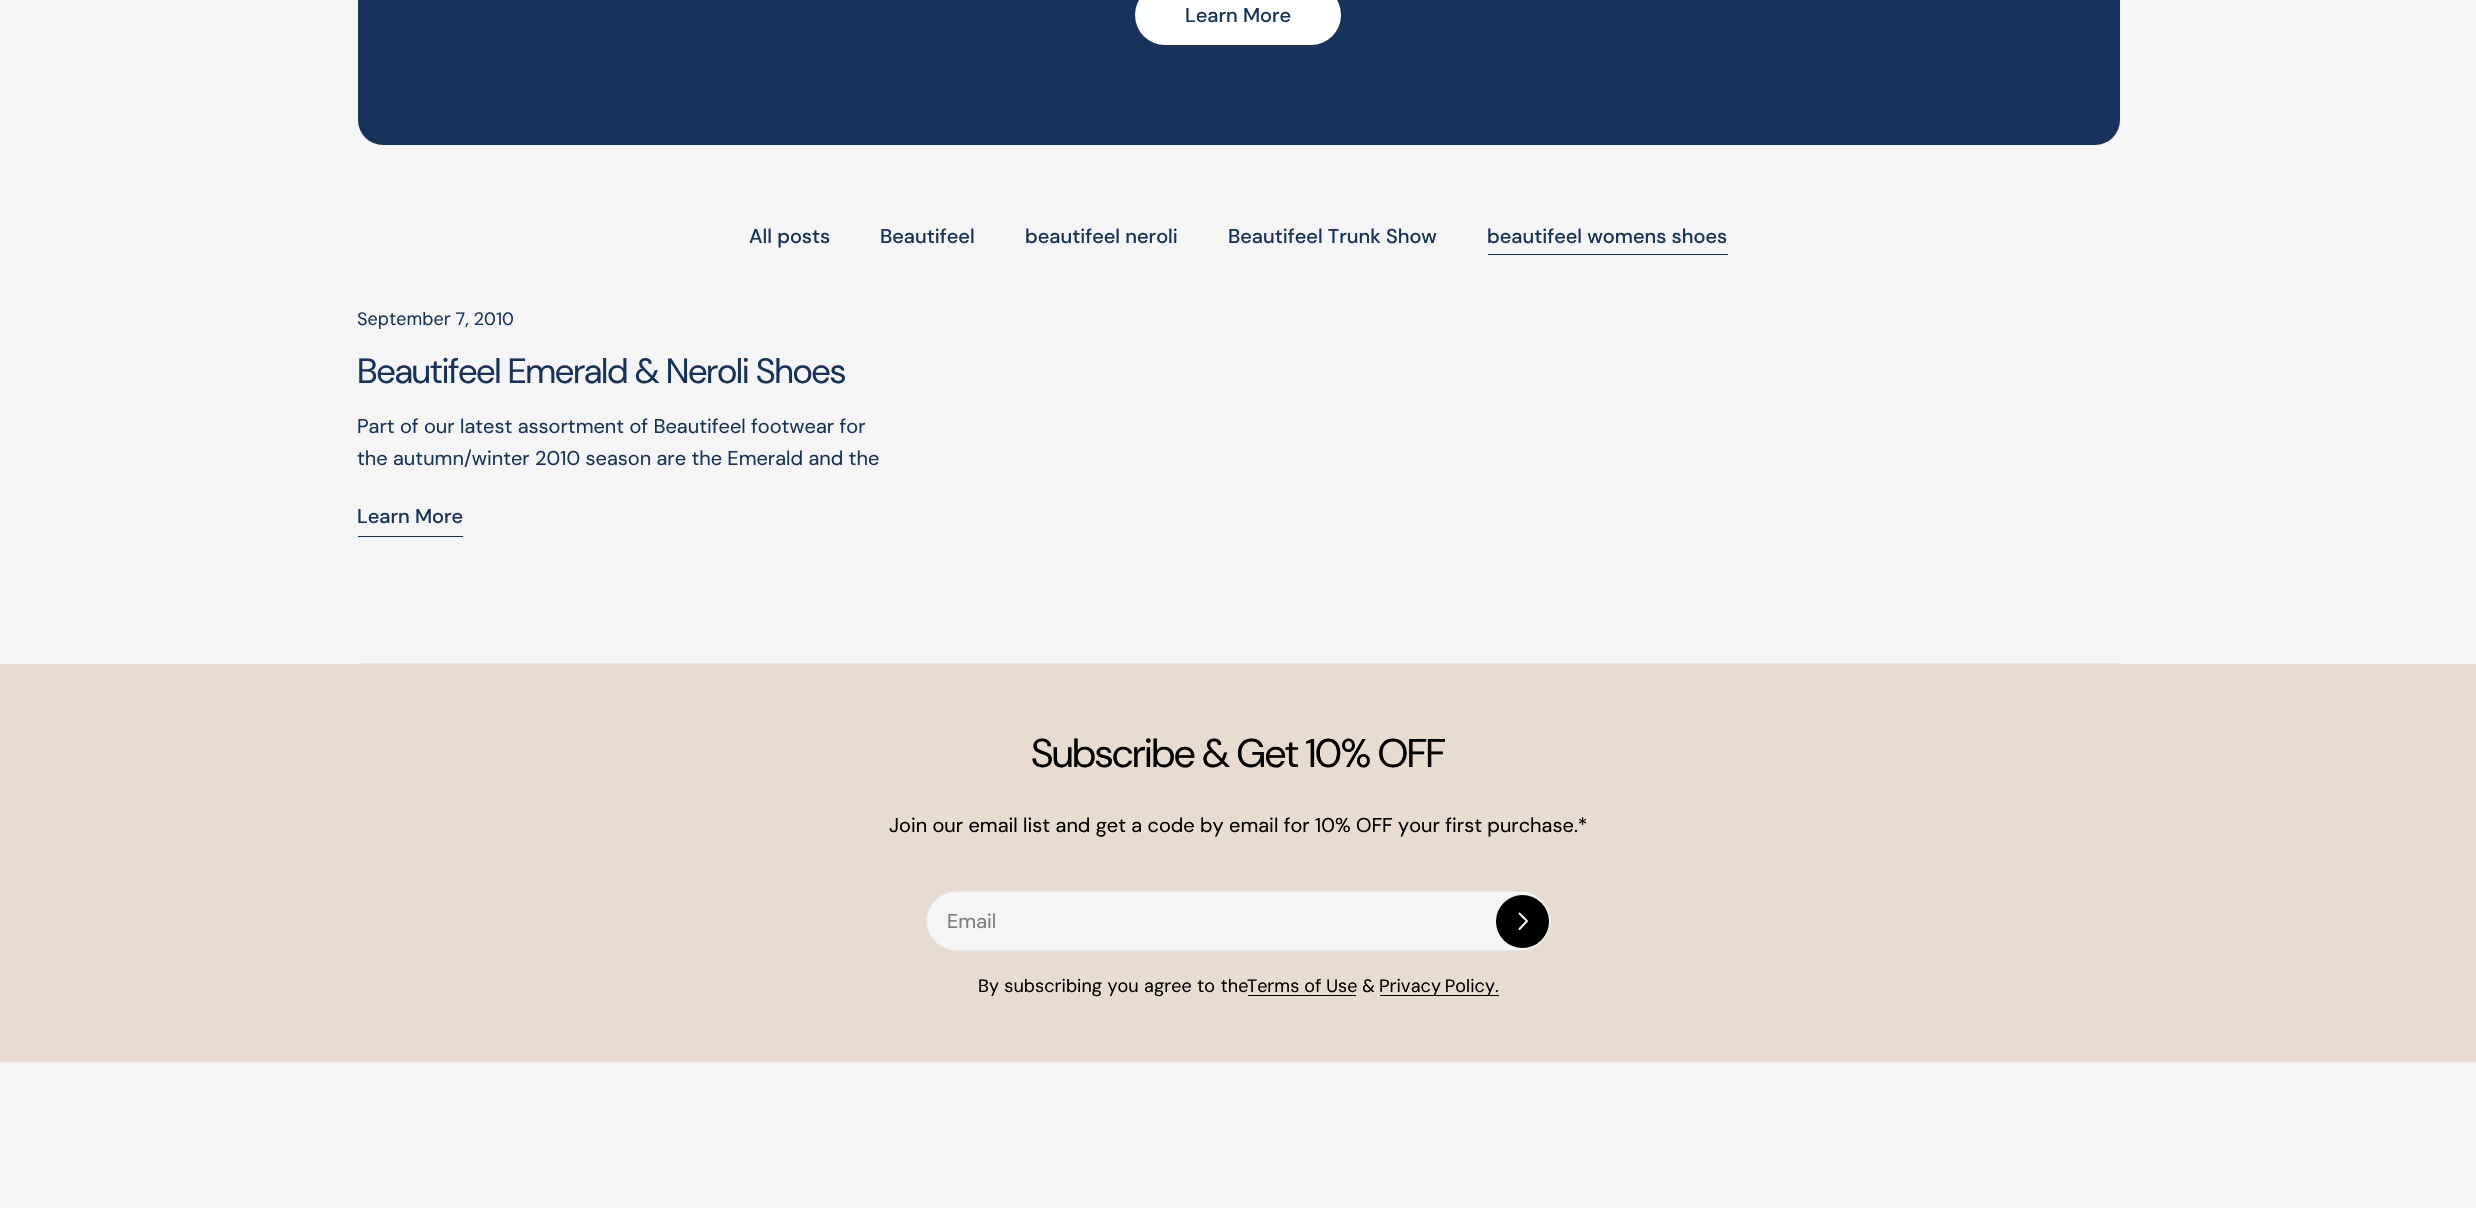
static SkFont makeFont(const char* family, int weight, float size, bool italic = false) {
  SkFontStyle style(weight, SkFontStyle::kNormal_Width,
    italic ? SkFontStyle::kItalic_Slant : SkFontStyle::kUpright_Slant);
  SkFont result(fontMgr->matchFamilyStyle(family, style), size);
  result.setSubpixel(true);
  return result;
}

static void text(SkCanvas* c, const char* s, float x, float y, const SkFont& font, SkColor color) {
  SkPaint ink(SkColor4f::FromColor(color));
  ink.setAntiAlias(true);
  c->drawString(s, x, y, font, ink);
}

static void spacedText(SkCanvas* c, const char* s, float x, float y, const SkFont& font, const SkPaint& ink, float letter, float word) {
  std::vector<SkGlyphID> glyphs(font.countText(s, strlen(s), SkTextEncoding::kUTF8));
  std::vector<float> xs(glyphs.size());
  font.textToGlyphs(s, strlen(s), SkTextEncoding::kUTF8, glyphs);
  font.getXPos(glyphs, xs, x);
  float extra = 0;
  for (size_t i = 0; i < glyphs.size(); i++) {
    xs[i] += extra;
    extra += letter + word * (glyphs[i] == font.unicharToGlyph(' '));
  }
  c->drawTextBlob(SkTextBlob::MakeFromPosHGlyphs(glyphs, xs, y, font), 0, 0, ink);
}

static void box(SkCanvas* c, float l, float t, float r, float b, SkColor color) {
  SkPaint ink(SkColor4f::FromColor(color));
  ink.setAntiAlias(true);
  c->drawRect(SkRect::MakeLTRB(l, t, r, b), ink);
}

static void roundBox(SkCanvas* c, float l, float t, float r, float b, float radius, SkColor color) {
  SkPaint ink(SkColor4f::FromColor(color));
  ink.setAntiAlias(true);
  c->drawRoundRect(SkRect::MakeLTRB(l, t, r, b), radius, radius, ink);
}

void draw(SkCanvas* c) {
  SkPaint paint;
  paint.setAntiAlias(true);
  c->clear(0xfff5f5f5);
  roundBox(c, 358, -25, 2120, 145, 25, 0xff18335b);
  roundBox(c, 1135, -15, 1341, 45, 30, 0xffffffff);
  SkFont face1 = makeFont("DM Sans", 500, 20);
  text(c, "Learn More", 1185, 22, face1, 0xff18335b);
  text(c, "All posts", 749, 243, face1, 0xff18335b);
  text(c, "Beautifeel", 880, 243, face1, 0xff18335b);
  text(c, "beautifeel neroli", 1025, 243, face1, 0xff18335b);
  text(c, "Beautifeel Trunk Show", 1228, 243, face1, 0xff18335b);
  box(c, 1488, 254, 1728, 255, 0xff18335b);
  text(c, "beautifeel womens shoes", 1487, 243, face1, 0xff18335b);
  SkFont face2 = makeFont("DM Sans", 400, 18);
  text(c, "September 7, 2010", 357, 325, face2, 0xff18335b);
  SkFont face3 = makeFont("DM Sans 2", 400, 35);
  paint.setColor(0xff18335b);
  spacedText(c, "Beautifeel Emerald & Neroli Shoes", 357, 383, face3, paint, -1.4f, 0);
  SkFont face4 = makeFont("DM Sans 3", 400, 20);
  text(c, "Part of our latest assortment of Beautifeel footwear for", 357, 433, face4, 0xff18335b);
  text(c, "the autumn/winter 2010 season are the Emerald and the", 357, 465, face4, 0xff18335b);
  text(c, "Learn More", 357, 523, face1, 0xff18335b);
  box(c, 358, 536, 463, 537, 0xff18335b);
  box(c, 358, 663, 2120, 664, 0xffe6e6e6);
  box(c, 0, 664, 2476, 1061, 0xffe8dcd0);
  SkFont face5 = makeFont("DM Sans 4", 400, 40);
  paint.setColor(0xff000000);
  spacedText(c, "Subscribe & Get 10% OFF", 1031, 767, face5, paint, -1.6f, 0);
  text(c, "Join our email list and get a code by email for 10% OFF your first purchase.*", 889, 832, face4, 0xff000000);
  paint.setColor(0xfff5f5f5);
  c->drawRoundRect(SkRect::MakeLTRB(926.5f, 891.5f, 1550.5f, 950.5f), 29.5f, 29.5f, paint);
  paint.setStyle(SkPaint::kStroke_Style);
  paint.setStrokeWidth(1);
  paint.setColor(0xffe6e6e6);
  c->drawRoundRect(SkRect::MakeLTRB(926.5f, 891.5f, 1550.5f, 950.5f), 29.5f, 29.5f, paint);
  text(c, "Email", 947, 928, face4, 0xff7b7b7b);
  paint.setStyle(SkPaint::kFill_Style);
  paint.setColor(0xff000000);
  c->drawCircle(1522.5f, 921.5f, 26.5f, paint);
  paint.setStyle(SkPaint::kStroke_Style);
  paint.setStrokeWidth(1.9f);
  paint.setStrokeCap(SkPaint::kRound_Cap);
  paint.setStrokeJoin(SkPaint::kRound_Join);
  paint.setColor(0xffffffff);
  c->drawPath(SkPathBuilder().moveTo(1519.5f, 913.5f).lineTo(1527, 921).lineTo(1519.5f, 929).detach(), paint);
  paint.setStyle(SkPaint::kFill_Style);
  paint.setColor(0xff000000);
  spacedText(c, "By subscribing you agree to the", 978, 992, face2, paint, 0, 0.5f);
  text(c, "Terms of Use", 1247, 992, face2, 0xff000000);
  box(c, 1248, 995, 1356, 996, 0xff000000);
  text(c, "&", 1362, 992, face2, 0xff000000);
  box(c, 1380, 995, 1499, 996, 0xff000000);
  spacedText(c, "Privacy Policy.", 1379, 992, face2, paint, 0, -1);
  box(c, 0, 1061, 2476, 1062, 0xffe6e6e6);
}
